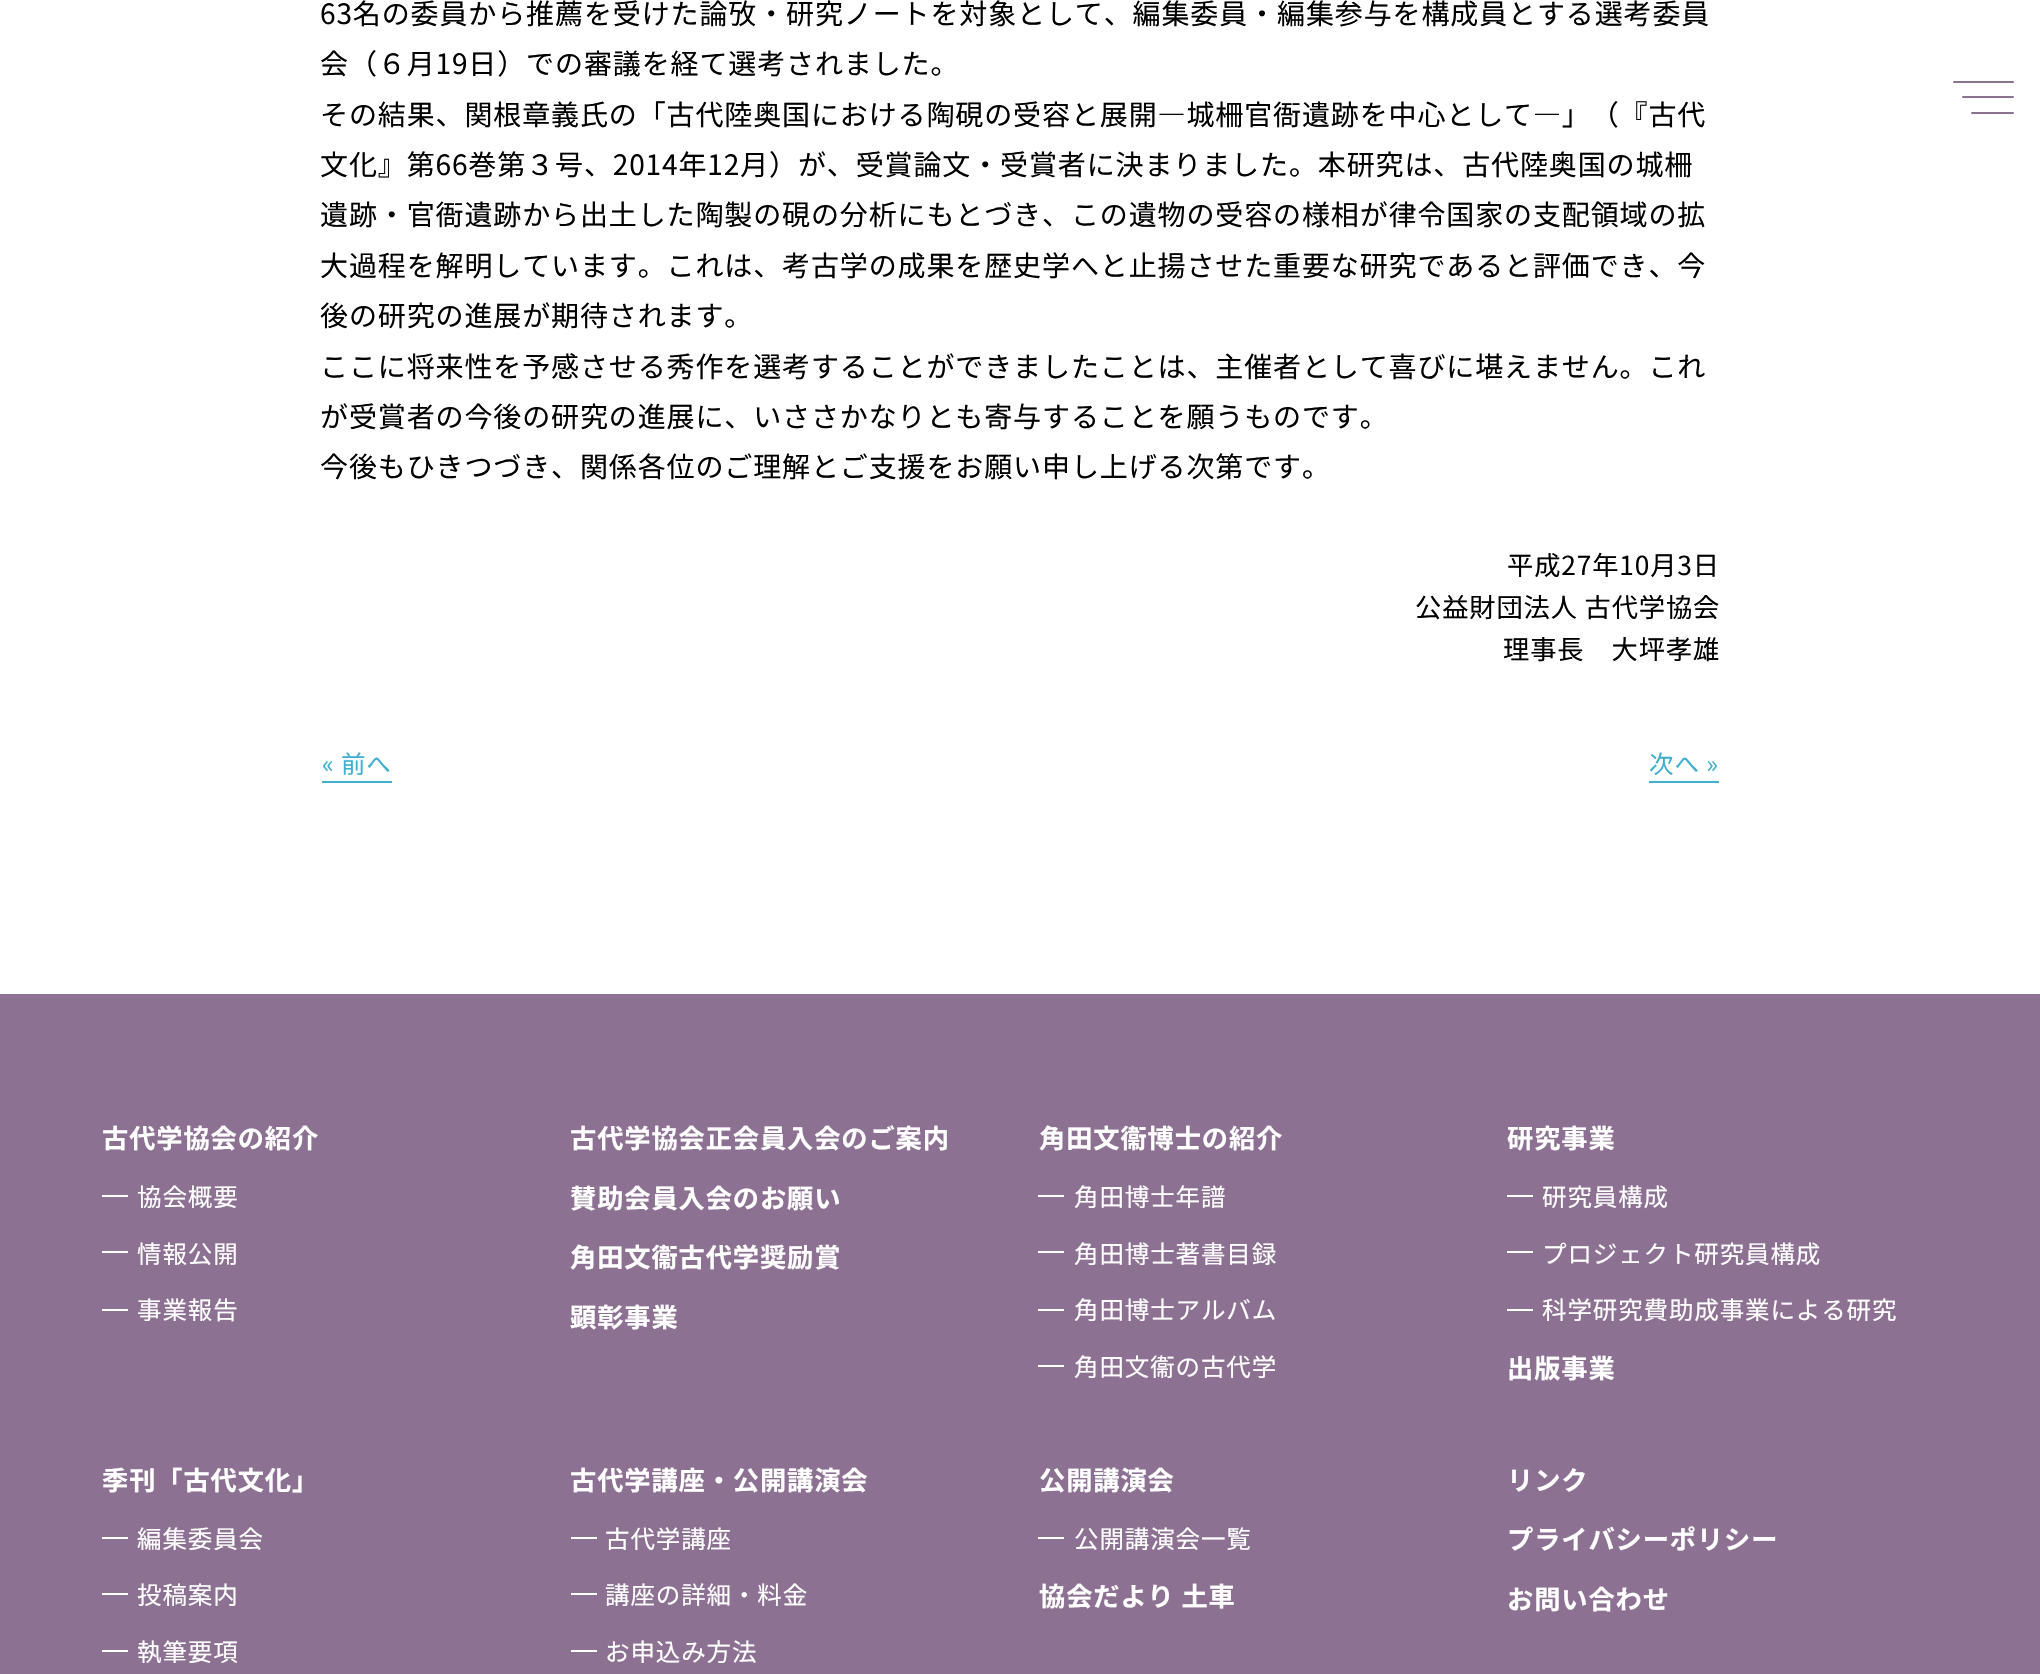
static SkFont makeFont(const char* family, int weight, float size, bool italic = false) {
  SkFontStyle style(weight, SkFontStyle::kNormal_Width,
    italic ? SkFontStyle::kItalic_Slant : SkFontStyle::kUpright_Slant);
  SkFont result(fontMgr->matchFamilyStyle(family, style), size);
  result.setSubpixel(true);
  return result;
}

static void spacedText(SkCanvas* c, const char* s, float x, float y, const SkFont& font, const SkPaint& ink, float letter, float word) {
  std::vector<SkGlyphID> glyphs(font.countText(s, strlen(s), SkTextEncoding::kUTF8));
  std::vector<float> xs(glyphs.size());
  font.textToGlyphs(s, strlen(s), SkTextEncoding::kUTF8, glyphs);
  font.getXPos(glyphs, xs, x);
  float extra = 0;
  for (size_t i = 0; i < glyphs.size(); i++) {
    xs[i] += extra;
    extra += letter + word * (glyphs[i] == font.unicharToGlyph(' '));
  }
  c->drawTextBlob(SkTextBlob::MakeFromPosHGlyphs(glyphs, xs, y, font), 0, 0, ink);
}

static void box(SkCanvas* c, float l, float t, float r, float b, SkColor color) {
  SkPaint ink(SkColor4f::FromColor(color));
  ink.setAntiAlias(true);
  c->drawRect(SkRect::MakeLTRB(l, t, r, b), ink);
}

static void roundBox(SkCanvas* c, float l, float t, float r, float b, float radius, SkColor color) {
  SkPaint ink(SkColor4f::FromColor(color));
  ink.setAntiAlias(true);
  c->drawRoundRect(SkRect::MakeLTRB(l, t, r, b), radius, radius, ink);
}

void draw(SkCanvas* c) {
  SkPaint paint;
  paint.setAntiAlias(true);
  c->clear(0xffffffff);
  SkFont face1 = makeFont("Noto Sans JP", 400, 28);
  paint.setColor(0xff000000);
  spacedText(c, "63名の委員から推薦を受けた論攷・研究ノートを対象として、編集委員・編集参与を構成員とする選考委員", 320, 24, face1, paint, 0.88f, 0);
  spacedText(c, "会（６月19日）での審議を経て選考されました。", 320, 74, face1, paint, 0.88f, 0);
  spacedText(c, "その結果、関根章義氏の「古代陸奥国における陶硯の受容と展開―城柵官衙遺跡を中心として―」（『古代", 320, 125, face1, paint, 0.88f, 0);
  spacedText(c, "文化』第66巻第３号、2014年12月）が、受賞論文・受賞者に決まりました。本研究は、古代陸奥国の城柵", 320, 175, face1, paint, 0.88f, 0);
  spacedText(c, "遺跡・官衙遺跡から出土した陶製の硯の分析にもとづき、この遺物の受容の様相が律令国家の支配領域の拡", 320, 225, face1, paint, 0.88f, 0);
  spacedText(c, "大過程を解明しています。これは、考古学の成果を歴史学へと止揚させた重要な研究であると評価でき、今", 320, 276, face1, paint, 0.88f, 0);
  spacedText(c, "後の研究の進展が期待されます。", 320, 326, face1, paint, 0.88f, 0);
  spacedText(c, "ここに将来性を予感させる秀作を選考することができましたことは、主催者として喜びに堪えません。これ", 320, 377, face1, paint, 0.88f, 0);
  spacedText(c, "が受賞者の今後の研究の進展に、いささかなりとも寄与することを願うものです。", 320, 427, face1, paint, 0.88f, 0);
  spacedText(c, "今後もひきつづき、関係各位のご理解とご支援をお願い申し上げる次第です。", 320, 477, face1, paint, 0.88f, 0);
  SkFont face2 = makeFont("Noto Sans JP", 400, 26.25f);
  spacedText(c, "平成27年10月3日", 1507, 575, face2, paint, 0.88f, 0);
  spacedText(c, "公益財団法人 古代学協会", 1415, 617, face2, paint, 0.88f, 0);
  spacedText(c, "理事長　大坪孝雄", 1503, 659, face2, paint, 0.88f, 0);
  SkFont face3 = makeFont("Noto Sans JP", 400, 24.5f);
  paint.setColor(0xff3fafcf);
  spacedText(c, "« 前へ", 322, 773, face3, paint, 0.88f, 0);
  box(c, 322, 781, 392, 783, 0xff3fafcf);
  spacedText(c, "次へ »", 1649, 773, face3, paint, 0.88f, 0);
  box(c, 1649, 781, 1719, 783, 0xff3fafcf);
  roundBox(c, 1962, 96, 2014, 98, 1, 0xff8d7193);
  roundBox(c, 1953, 81, 2014, 83, 1, 0xff8d7193);
  roundBox(c, 1971, 112, 2014, 114, 1, 0xff8d7193);
  box(c, 0, 994, 2040, 1674, 0xff8d7193);
  SkFont face4 = makeFont("Noto Sans JP", 700, 26.25f);
  paint.setColor(0xffffffff);
  spacedText(c, "古代学協会の紹介", 102, 1148, face4, paint, 0.88f, 0);
  box(c, 102, 1195, 128, 1197, 0xffffffff);
  spacedText(c, "協会概要", 137, 1206, face3, paint, 0.88f, 0);
  box(c, 102, 1251, 128, 1253, 0xffffffff);
  spacedText(c, "情報公開", 137, 1263, face3, paint, 0.88f, 0);
  box(c, 102, 1309, 128, 1311, 0xffffffff);
  spacedText(c, "事業報告", 137, 1319, face3, paint, 0.88f, 0);
  spacedText(c, "古代学協会正会員⼊会のご案内", 570, 1148, face4, paint, 0.88f, 0);
  spacedText(c, "賛助会員⼊会のお願い", 570, 1208, face4, paint, 0.88f, 0);
  spacedText(c, "⾓⽥⽂衞古代学奨励賞", 570, 1267, face4, paint, 0.88f, 0);
  spacedText(c, "顕彰事業", 570, 1327, face4, paint, 0.88f, 0);
  spacedText(c, "⾓⽥⽂衞博⼠の紹介", 1039, 1148, face4, paint, 0.88f, 0);
  box(c, 1038, 1195, 1064, 1197, 0xffffffff);
  spacedText(c, "⾓⽥博⼠年譜", 1074, 1206, face3, paint, 0.88f, 0);
  box(c, 1038, 1251, 1064, 1253, 0xffffffff);
  spacedText(c, "⾓⽥博⼠著書⽬録", 1074, 1263, face3, paint, 0.88f, 0);
  box(c, 1038, 1309, 1064, 1311, 0xffffffff);
  spacedText(c, "⾓⽥博⼠アルバム", 1074, 1319, face3, paint, 0.88f, 0);
  box(c, 1038, 1365, 1064, 1367, 0xffffffff);
  spacedText(c, "⾓⽥⽂衞の古代学", 1074, 1376, face3, paint, 0.88f, 0);
  spacedText(c, "研究事業", 1507, 1148, face4, paint, 0.88f, 0);
  box(c, 1507, 1195, 1533, 1197, 0xffffffff);
  spacedText(c, "研究員構成", 1542, 1206, face3, paint, 0.88f, 0);
  box(c, 1507, 1251, 1533, 1253, 0xffffffff);
  spacedText(c, "プロジェクト研究員構成", 1542, 1263, face3, paint, 0.88f, 0);
  box(c, 1507, 1309, 1533, 1311, 0xffffffff);
  spacedText(c, "科学研究費助成事業による研究", 1542, 1319, face3, paint, 0.88f, 0);
  spacedText(c, "出版事業", 1507, 1378, face4, paint, 0.88f, 0);
  spacedText(c, "季刊「古代⽂化」", 102, 1490, face4, paint, 0.88f, 0);
  box(c, 102, 1537, 128, 1539, 0xffffffff);
  spacedText(c, "編集委員会", 137, 1548, face3, paint, 0.88f, 0);
  box(c, 102, 1593, 128, 1595, 0xffffffff);
  spacedText(c, "投稿案内", 137, 1604, face3, paint, 0.88f, 0);
  box(c, 102, 1650, 128, 1652, 0xffffffff);
  spacedText(c, "執筆要項", 137, 1661, face3, paint, 0.88f, 0);
  spacedText(c, "古代学講座・公開講演会", 570, 1490, face4, paint, 0.88f, 0);
  box(c, 571, 1537, 597, 1539, 0xffffffff);
  spacedText(c, "古代学講座", 605, 1548, face3, paint, 0.88f, 0);
  box(c, 571, 1593, 597, 1595, 0xffffffff);
  spacedText(c, "講座の詳細・料金", 605, 1604, face3, paint, 0.88f, 0);
  box(c, 571, 1650, 597, 1652, 0xffffffff);
  spacedText(c, "お申込み⽅法", 605, 1661, face3, paint, 0.88f, 0);
  spacedText(c, "公開講演会", 1039, 1490, face4, paint, 0.88f, 0);
  box(c, 1038, 1537, 1064, 1539, 0xffffffff);
  spacedText(c, "公開講演会一覧", 1074, 1548, face3, paint, 0.88f, 0);
  spacedText(c, "協会だより ⼟⾞", 1039, 1606, face4, paint, 0.88f, 0);
  spacedText(c, "リンク", 1507, 1490, face4, paint, 0.88f, 0);
  spacedText(c, "プライバシーポリシー", 1507, 1549, face4, paint, 0.88f, 0);
  spacedText(c, "お問い合わせ", 1507, 1609, face4, paint, 0.88f, 0);
}
